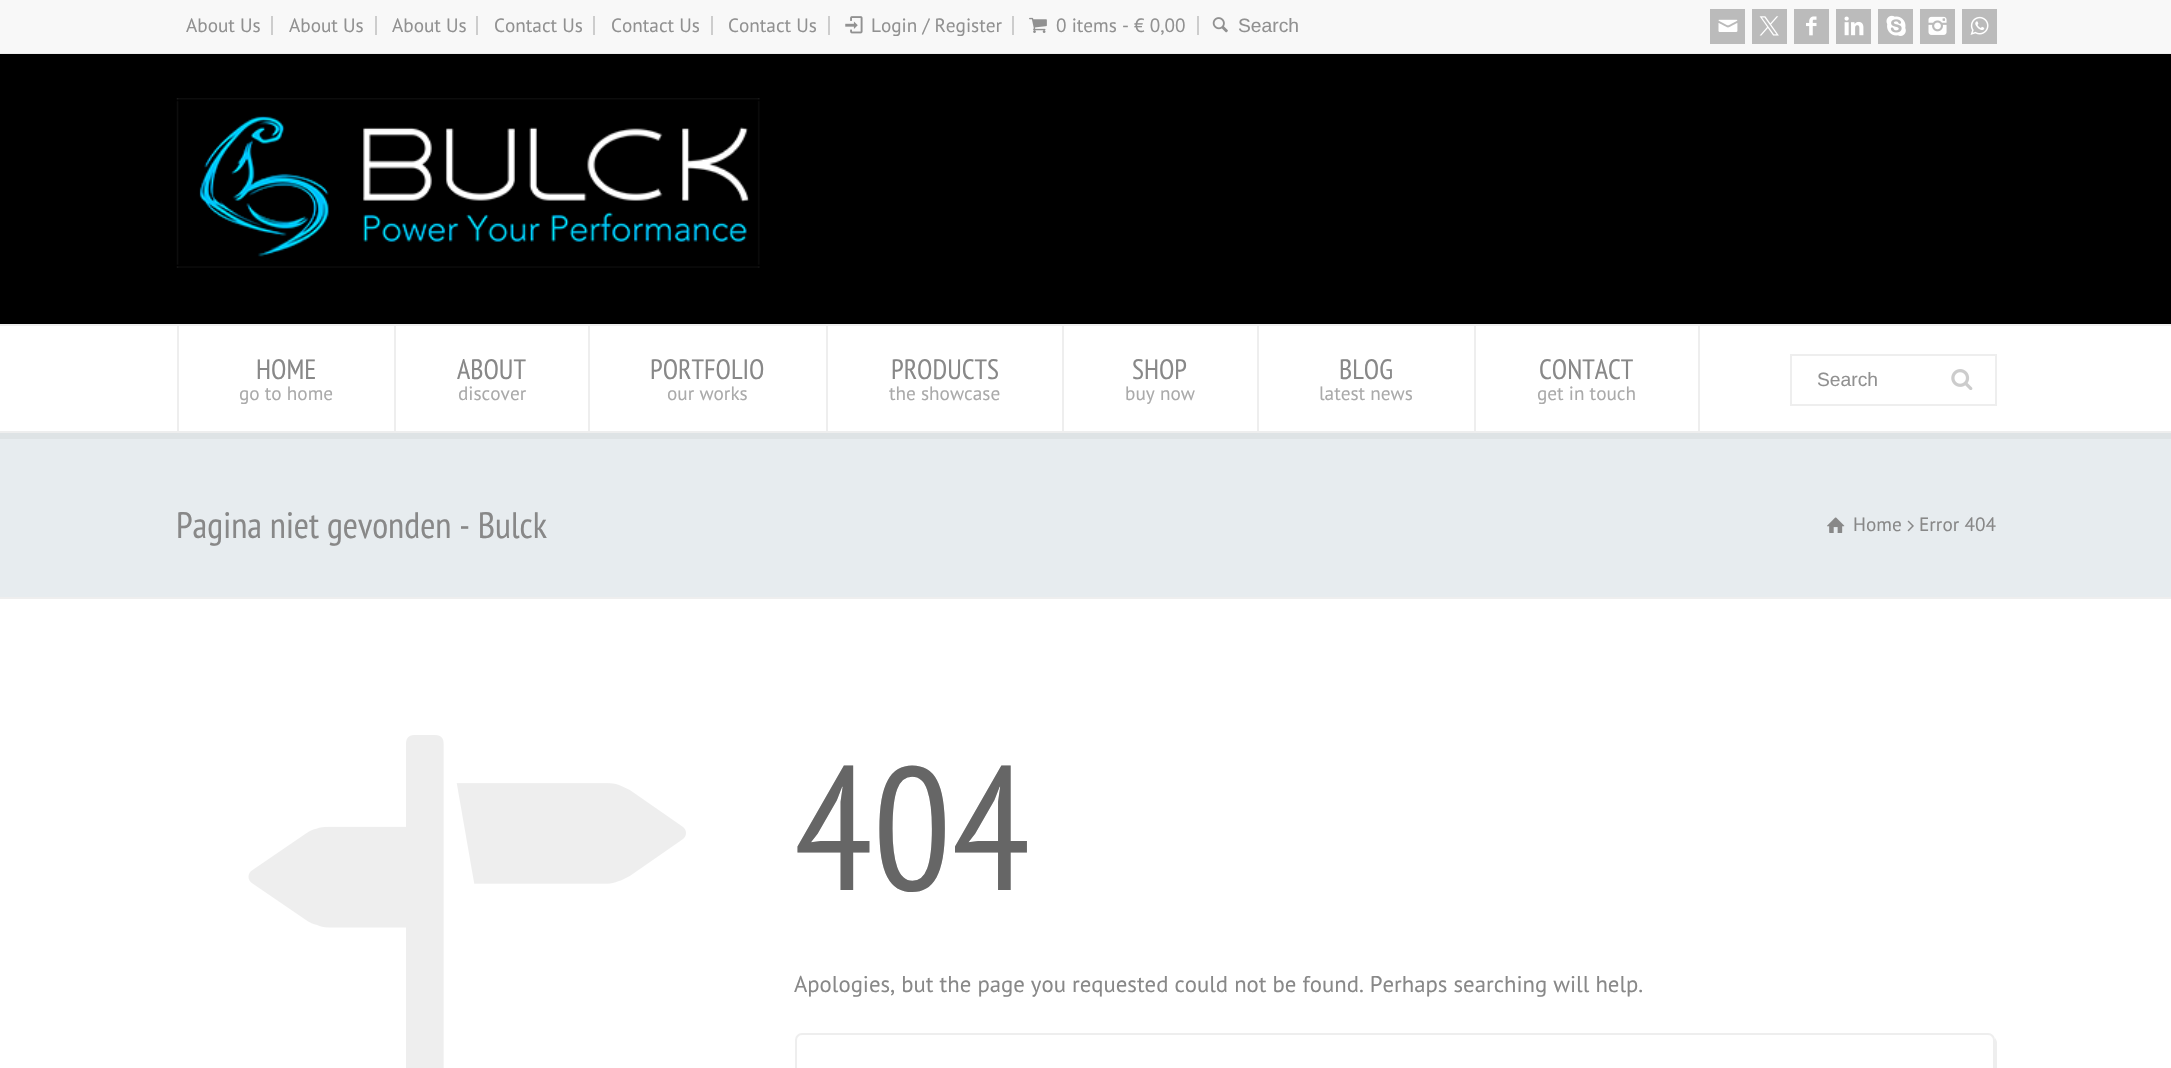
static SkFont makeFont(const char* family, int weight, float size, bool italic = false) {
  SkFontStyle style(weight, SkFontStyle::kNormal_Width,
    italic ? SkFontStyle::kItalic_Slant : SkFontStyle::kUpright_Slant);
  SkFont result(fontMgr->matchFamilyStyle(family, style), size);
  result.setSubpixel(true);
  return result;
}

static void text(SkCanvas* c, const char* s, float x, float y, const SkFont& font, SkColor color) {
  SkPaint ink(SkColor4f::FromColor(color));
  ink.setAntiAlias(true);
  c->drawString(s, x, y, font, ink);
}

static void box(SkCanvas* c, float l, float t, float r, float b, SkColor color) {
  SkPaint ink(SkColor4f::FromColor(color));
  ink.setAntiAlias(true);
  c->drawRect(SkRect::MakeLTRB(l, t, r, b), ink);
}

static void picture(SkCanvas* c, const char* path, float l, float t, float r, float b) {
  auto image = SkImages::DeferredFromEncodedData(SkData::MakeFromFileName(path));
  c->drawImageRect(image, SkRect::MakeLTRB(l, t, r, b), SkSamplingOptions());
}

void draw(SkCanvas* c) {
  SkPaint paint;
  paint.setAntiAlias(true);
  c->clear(0xffffffff);
  box(c, 0, 0, 2171, 53, 0xfff8f8f8);
  box(c, 0, 53, 2171, 54, 0xffeeeeee);
  box(c, 271, 16, 273, 35, 0xffcdcdcd);
  SkFont face1 = makeFont("PT Sans", 400, 19.25f);
  text(c, "About Us", 186, 32, face1, 0xff919191);
  box(c, 375, 16, 377, 35, 0xffcdcdcd);
  text(c, "About Us", 289, 32, face1, 0xff919191);
  box(c, 476, 16, 478, 35, 0xffcdcdcd);
  text(c, "About Us", 392, 32, face1, 0xff919191);
  box(c, 593, 16, 595, 35, 0xffcdcdcd);
  text(c, "Contact Us", 494, 32, face1, 0xff919191);
  box(c, 711, 16, 713, 35, 0xffcdcdcd);
  text(c, "Contact Us", 611, 32, face1, 0xff919191);
  box(c, 828, 16, 830, 35, 0xffcdcdcd);
  text(c, "Contact Us", 728, 32, face1, 0xff919191);
  box(c, 1012, 16, 1014, 35, 0xffcdcdcd);
  picture(c, "img_01.png", 845, 16, 863, 34);
  text(c, "Login / Register", 871, 32, face1, 0xff919191);
  box(c, 1197, 16, 1199, 35, 0xffcdcdcd);
  picture(c, "img_02.png", 1029, 17, 1047, 33);
  text(c, "0 items - € 0,00", 1056, 32, face1, 0xff919191);
  picture(c, "img_03.png", 1212, 17, 1228, 33);
  SkFont face2 = makeFont("Liberation Sans", 400, 19.25f);
  text(c, "Search", 1238, 32, face2, 0xff919191);
  box(c, 1710, 9, 1745, 44, 0xffbbbbbb);
  picture(c, "img_04.png", 1718, 19, 1738, 32);
  box(c, 1752, 9, 1787, 44, 0xffbbbbbb);
  picture(c, "img_05.png", 1759, 16, 1779, 36);
  box(c, 1794, 9, 1829, 44, 0xffbbbbbb);
  picture(c, "img_06.png", 1806, 16, 1817, 36);
  box(c, 1836, 9, 1871, 44, 0xffbbbbbb);
  picture(c, "img_07.png", 1844, 16, 1864, 36);
  box(c, 1878, 9, 1913, 44, 0xffbbbbbb);
  picture(c, "img_08.png", 1886, 15, 1906, 36);
  box(c, 1920, 9, 1955, 44, 0xffbbbbbb);
  picture(c, "img_09.png", 1928, 16, 1947, 35);
  box(c, 1962, 9, 1997, 44, 0xffbbbbbb);
  picture(c, "img_10.png", 1970, 16, 1989, 35);
  box(c, 0, 54, 2171, 324, 0xff000000);
  picture(c, "img_11.png", 176, 98, 760, 268);
  paint.setColor(0xffdee3e5);
  c->drawPath(SkPathBuilder().moveTo(0, 432).lineTo(0, 439).lineTo(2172, 439).lineTo(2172, 331).lineTo(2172, 432).close().detach(), paint);
  box(c, 0, 324, 2171, 326, 0xffeeeeee);
  box(c, 0, 431, 2171, 433, 0xffeeeeee);
  box(c, 394, 326, 396, 431, 0xffeeeeee);
  box(c, 177, 326, 179, 431, 0xffeeeeee);
  SkFont face3 = makeFont("PT Sans Narrow", 400, 28);
  text(c, "HOME", 256, 379, face3, 0xff888888);
  text(c, "go to home", 239, 400, face1, 0xffaaaaaa);
  box(c, 588, 326, 590, 431, 0xffeeeeee);
  text(c, "ABOUT", 457, 379, face3, 0xff888888);
  text(c, "discover", 458, 400, face1, 0xffaaaaaa);
  box(c, 826, 326, 828, 431, 0xffeeeeee);
  text(c, "PORTFOLIO", 650, 379, face3, 0xff888888);
  text(c, "our works", 667, 400, face1, 0xffaaaaaa);
  box(c, 1062, 326, 1064, 431, 0xffeeeeee);
  text(c, "PRODUCTS", 891, 379, face3, 0xff888888);
  text(c, "the showcase", 889, 400, face1, 0xffaaaaaa);
  box(c, 1257, 326, 1259, 431, 0xffeeeeee);
  text(c, "SHOP", 1132, 379, face3, 0xff888888);
  text(c, "buy now", 1125, 400, face1, 0xffaaaaaa);
  box(c, 1474, 326, 1476, 431, 0xffeeeeee);
  text(c, "BLOG", 1339, 379, face3, 0xff888888);
  text(c, "latest news", 1319, 400, face1, 0xffaaaaaa);
  box(c, 1698, 326, 1700, 431, 0xffeeeeee);
  text(c, "CONTACT", 1539, 379, face3, 0xff888888);
  text(c, "get in touch", 1537, 400, face1, 0xffaaaaaa);
  paint.setStyle(SkPaint::kStroke_Style);
  paint.setStrokeWidth(2);
  paint.setColor(0xffeeeeee);
  c->drawRect(SkRect::MakeLTRB(1791, 355, 1996, 405), paint);
  text(c, "Search", 1817, 386, face2, 0xff919191);
  picture(c, "img_12.png", 1951, 369, 1973, 390);
  box(c, 0, 439, 2171, 597, 0xffe7ecef);
  box(c, 0, 597, 2171, 599, 0xffeeeeee);
  SkFont face4 = makeFont("PT Sans Narrow", 400, 36.75f);
  text(c, "Pagina niet gevonden - Bulck", 176, 538, face4, 0xff888888);
  picture(c, "img_13.png", 1827, 517, 1845, 533);
  text(c, "Home", 1853, 531, face1, 0xff888888);
  picture(c, "img_14.png", 1907, 520, 1914, 532);
  text(c, "Error 404", 1919, 531, face1, 0xff888888);
  picture(c, "img_15.png", 248, 735, 686, 1068);
  SkFont face5 = makeFont("PT Sans Narrow", 400, 175);
  text(c, "404", 794, 890, face5, 0xff666666);
  SkFont face6 = makeFont("PT Sans", 400, 22.75f);
  text(c, "Apologies, but the page you requested could not be found. Perhaps searching will help.", 794, 992, face6, 0xff888888);
  paint.setStyle(SkPaint::kFill_Style);
  c->drawPath(SkPathBuilder().moveTo(796, 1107).cubicTo(797, 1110, 799, 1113, 803, 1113).lineTo(1990, 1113).cubicTo(1994, 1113, 1997, 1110, 1997, 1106).lineTo(1997, 1043).cubicTo(1997, 1041, 1996, 1039, 1995, 1038).lineTo(1995, 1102).cubicTo(1995, 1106, 1992, 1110, 1988, 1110).lineTo(802, 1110).cubicTo(799, 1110, 797, 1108, 796, 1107).close().detach(), paint);
  paint.setStyle(SkPaint::kStroke_Style);
  c->drawRoundRect(SkRect::MakeLTRB(796, 1034, 1994, 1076), 6, 6, paint);
}
